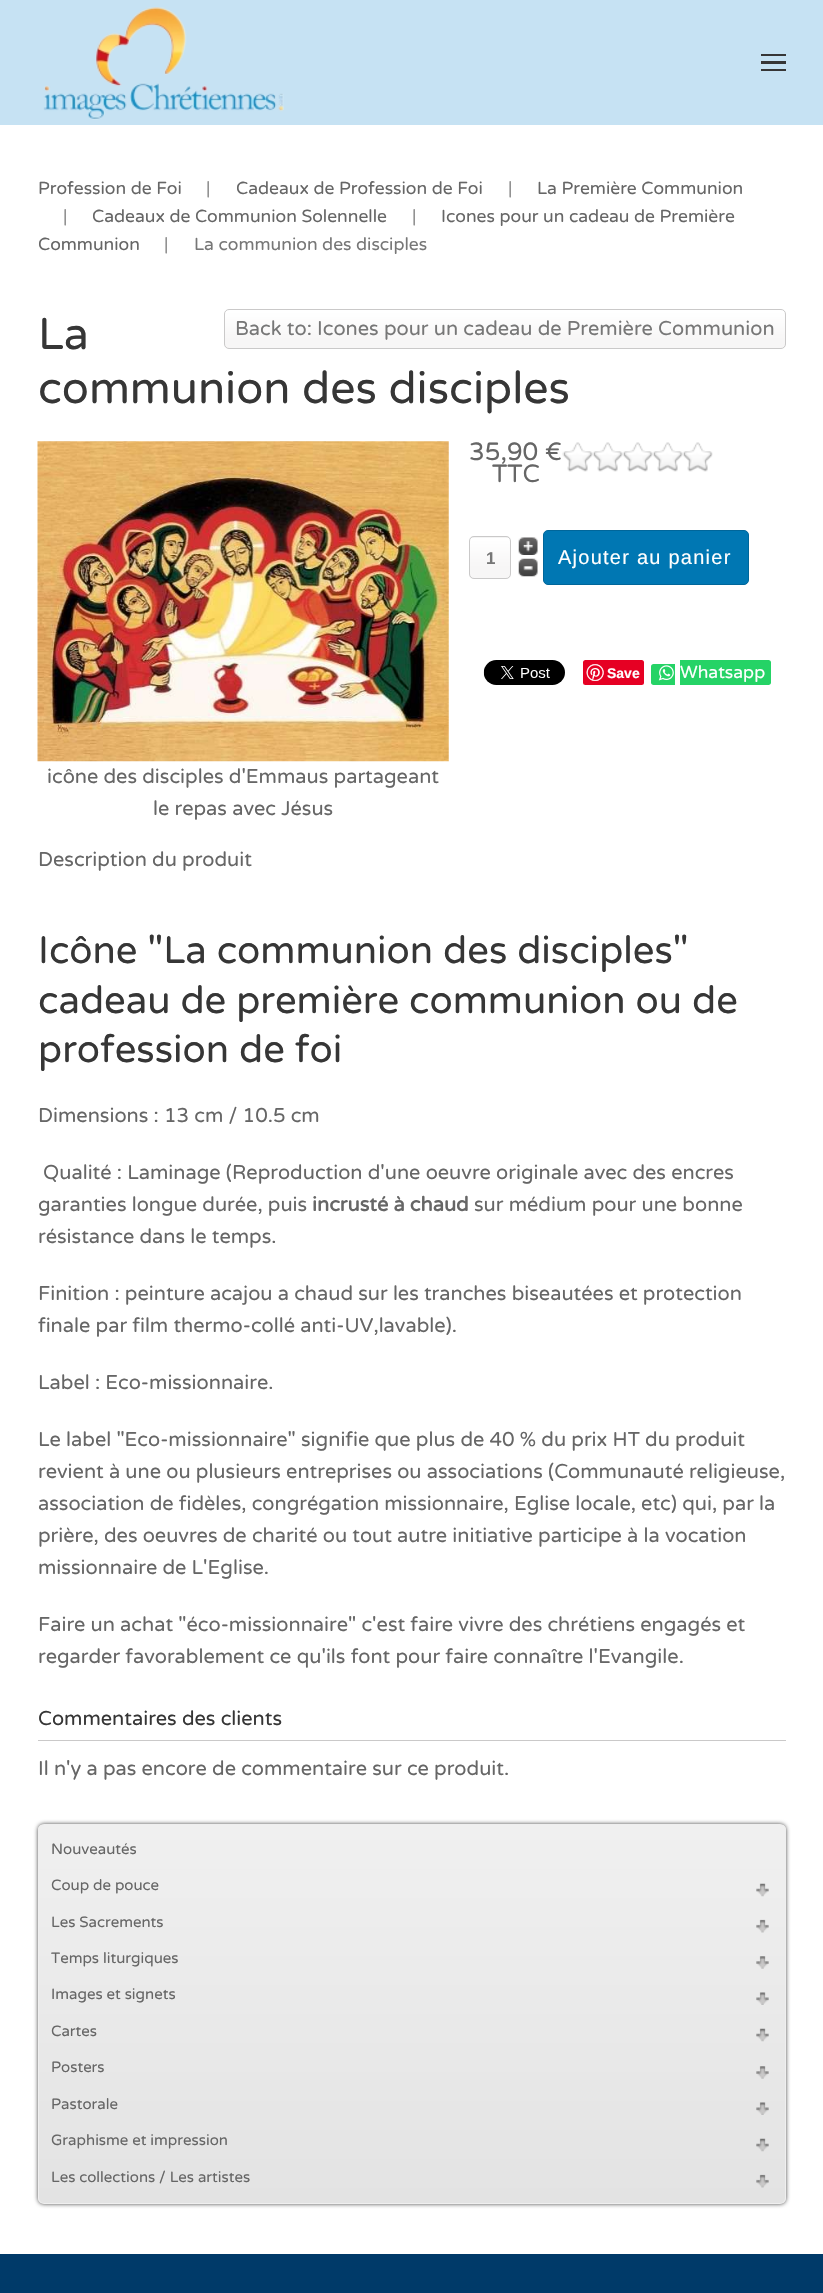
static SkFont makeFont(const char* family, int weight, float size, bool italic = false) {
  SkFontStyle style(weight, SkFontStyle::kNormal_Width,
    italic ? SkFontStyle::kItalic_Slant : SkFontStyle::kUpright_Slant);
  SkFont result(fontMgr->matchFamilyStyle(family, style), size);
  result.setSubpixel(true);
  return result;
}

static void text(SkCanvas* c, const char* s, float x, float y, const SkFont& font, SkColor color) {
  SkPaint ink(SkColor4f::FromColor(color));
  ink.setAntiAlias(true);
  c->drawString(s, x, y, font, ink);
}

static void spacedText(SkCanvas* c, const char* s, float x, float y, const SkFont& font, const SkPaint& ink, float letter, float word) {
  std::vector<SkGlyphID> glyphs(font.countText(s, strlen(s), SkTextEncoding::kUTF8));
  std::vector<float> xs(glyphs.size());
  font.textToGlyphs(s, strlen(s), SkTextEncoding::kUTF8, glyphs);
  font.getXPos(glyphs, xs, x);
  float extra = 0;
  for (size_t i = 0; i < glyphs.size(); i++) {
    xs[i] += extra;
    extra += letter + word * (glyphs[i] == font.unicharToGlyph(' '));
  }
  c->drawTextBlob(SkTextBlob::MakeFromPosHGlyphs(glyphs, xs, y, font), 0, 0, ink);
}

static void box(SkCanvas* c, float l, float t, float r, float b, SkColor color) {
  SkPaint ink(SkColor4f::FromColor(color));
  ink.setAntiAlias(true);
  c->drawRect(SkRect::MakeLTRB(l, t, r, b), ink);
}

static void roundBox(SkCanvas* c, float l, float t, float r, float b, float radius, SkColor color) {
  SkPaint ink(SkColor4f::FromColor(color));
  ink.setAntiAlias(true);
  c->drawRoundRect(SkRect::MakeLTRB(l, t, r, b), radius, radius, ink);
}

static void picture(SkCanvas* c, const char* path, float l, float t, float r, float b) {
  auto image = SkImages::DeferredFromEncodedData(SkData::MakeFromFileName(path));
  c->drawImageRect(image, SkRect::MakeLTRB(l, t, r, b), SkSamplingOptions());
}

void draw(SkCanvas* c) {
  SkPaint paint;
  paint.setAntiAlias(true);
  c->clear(0xffffffff);
  box(c, 0, 0, 823, 125, 0xffc6e2f3);
  picture(c, "img_01.png", 43, 7, 284, 120);
  box(c, 761, 54, 786, 56, 0xff363636);
  box(c, 761, 61, 786, 64, 0xff363636);
  box(c, 761, 69, 786, 71, 0xff363636);
  SkFont face1 = makeFont("Varela Round", 400, 17.5f);
  text(c, "Profession de Foi", 38, 194, face1, 0xff666666);
  text(c, "|", 206, 194, face1, 0xff8c8c8c);
  text(c, "Cadeaux de Profession de Foi", 236, 194, face1, 0xff666666);
  text(c, "|", 508, 194, face1, 0xff8c8c8c);
  text(c, "La Première Communion", 537, 194, face1, 0xff666666);
  text(c, "|", 412, 222, face1, 0xff8c8c8c);
  text(c, "Icones pour un cadeau de Première", 441, 222, face1, 0xff666666);
  text(c, "Communion", 38, 250, face1, 0xff666666);
  text(c, "|", 63, 222, face1, 0xff8c8c8c);
  text(c, "Cadeaux de Communion Solennelle", 92, 222, face1, 0xff666666);
  text(c, "|", 164, 250, face1, 0xff8c8c8c);
  text(c, "La communion des disciples", 194, 250, face1, 0xff777777);
  SkFont face2 = makeFont("Varela Round", 400, 44.6f);
  text(c, "La", 38, 349, face2, 0xff363636);
  text(c, "communion des disciples", 38, 403, face2, 0xff363636);
  picture(c, "img_02.png", 224, 310, 786, 349);
  paint.setStyle(SkPaint::kStroke_Style);
  paint.setStrokeWidth(1);
  paint.setColor(0xffcac9c9);
  c->drawRoundRect(SkRect::MakeLTRB(224.5f, 309.5f, 785.5f, 348.5f), 4.5f, 4.5f, paint);
  SkFont face3 = makeFont("Varela Round", 400, 20);
  text(c, "Back to: Icones pour un cadeau de Première Communion", 235, 335, face3, 0xff777777);
  SkFont face4 = makeFont("Varela Round", 400, 25);
  text(c, "35,90 €", 469, 460, face4, 0xff666666);
  text(c, "TTC", 492, 482, face4, 0xff666666);
  picture(c, "img_03.png", 562, 442, 713, 472);
  roundBox(c, 469, 536, 511, 579, 5, 0xffe8e8e8);
  picture(c, "img_04.png", 469, 537, 511, 579);
  c->drawRoundRect(SkRect::MakeLTRB(469.5f, 536.5f, 510.5f, 578.5f), 4.5f, 4.5f, paint);
  SkFont face5 = makeFont("Liberation Sans", 700, 17);
  text(c, "1", 486, 564, face5, 0xff777777);
  picture(c, "img_05.png", 518, 537, 538, 555);
  picture(c, "img_06.png", 518, 558, 538, 577);
  paint.setStyle(SkPaint::kFill_Style);
  paint.setColor(0xff0077b3);
  c->drawRoundRect(SkRect::MakeLTRB(543.5f, 530.5f, 748.5f, 584.5f), 4.5f, 4.5f, paint);
  paint.setStyle(SkPaint::kStroke_Style);
  paint.setColor(0xff00669a);
  c->drawRoundRect(SkRect::MakeLTRB(543.5f, 530.5f, 748.5f, 584.5f), 4.5f, 4.5f, paint);
  SkFont face6 = makeFont("Liberation Sans", 400, 20);
  paint.setStyle(SkPaint::kFill_Style);
  paint.setColor(0xffffffff);
  spacedText(c, "Ajouter au panier", 558, 564, face6, paint, 1.25f, 0);
  picture(c, "img_07.png", 483, 660, 565, 685);
  roundBox(c, 583, 660, 644, 685, 2.5f, 0xffe60023);
  picture(c, "img_08.png", 586, 664, 604, 681);
  SkFont face7 = makeFont("Liberation Sans", 700, 14);
  text(c, "Save", 607, 678, face7, 0xffffffff);
  paint.setColor(0xff25d366);
  c->drawPath(SkPathBuilder().moveTo(653.5f, 664).lineTo(675, 664).lineTo(675, 685).lineTo(653.5f, 685).cubicTo(652, 685, 651, 684, 651, 682.5f).lineTo(651, 666.5f).cubicTo(651, 665, 652, 664, 653.5f, 664).close().detach(), paint);
  picture(c, "img_09.png", 658, 665, 674, 681);
  c->drawPath(SkPathBuilder().moveTo(680, 660).lineTo(768.5f, 660).cubicTo(770, 660, 771, 661, 771, 662.5f).lineTo(771, 682.5f).cubicTo(771, 684, 770, 685, 768.5f, 685).lineTo(680, 685).close().detach(), paint);
  text(c, "Whatsapp", 680, 678, face1, 0xffffffff);
  picture(c, "img_10.png", 37, 441, 449, 762);
  text(c, "icône des disciples d'Emmaus partageant", 47, 783, face3, 0xff666666);
  text(c, "le repas avec Jésus", 153, 815, face3, 0xff666666);
  text(c, "Description du produit", 38, 866, face3, 0xff666666);
  SkFont face8 = makeFont("Varela Round", 400, 38.25f);
  text(c, "Icône \"La communion des disciples\"", 38, 963, face8, 0xff363636);
  text(c, "cadeau de première communion ou de", 38, 1013, face8, 0xff363636);
  text(c, "profession de foi", 38, 1062, face8, 0xff363636);
  text(c, "Dimensions : 13 cm / 10.5 cm", 38, 1122, face3, 0xff666666);
  text(c, "Qualité : Laminage (Reproduction d'une oeuvre originale avec des encres", 43, 1179, face3, 0xff666666);
  text(c, "garanties longue durée, puis", 38, 1211, face3, 0xff666666);
  SkFont face9 = makeFont("Varela Round", 700, 20);
  text(c, "incrusté à chaud", 312, 1211, face9, 0xff666666);
  text(c, "sur médium pour une bonne", 474, 1211, face3, 0xff666666);
  text(c, "résistance dans le temps.", 38, 1243, face3, 0xff666666);
  text(c, "Finition : peinture acajou a chaud sur les tranches biseautées et protection", 38, 1300, face3, 0xff666666);
  text(c, "finale par film thermo-collé anti-UV,lavable).", 38, 1332, face3, 0xff666666);
  text(c, "Label : Eco-missionnaire.", 38, 1389, face3, 0xff666666);
  text(c, "Le label \"Eco-missionnaire\" signifie que plus de 40 % du prix HT du produit", 38, 1446, face3, 0xff666666);
  text(c, "revient à une ou plusieurs entreprises ou associations (Communauté religieuse,", 38, 1478, face3, 0xff666666);
  text(c, "association de fidèles, congrégation missionnaire, Eglise locale, etc) qui, par la", 38, 1510, face3, 0xff666666);
  text(c, "prière, des oeuvres de charité ou tout autre initiative participe à la vocation", 38, 1542, face3, 0xff666666);
  text(c, "missionnaire de L'Eglise.", 38, 1574, face3, 0xff666666);
  text(c, "Faire un achat \"éco-missionnaire\" c'est faire vivre des chrétiens engagés et", 38, 1631, face3, 0xff666666);
  text(c, "regarder favorablement ce qu'ils font pour faire connaître l'Evangile.", 38, 1663, face3, 0xff666666);
  box(c, 38, 1740, 786, 1741, 0xffcac9c9);
  text(c, "Commentaires des clients", 38, 1725, face3, 0xff363636);
  text(c, "Il n'y a pas encore de commentaire sur ce produit.", 38, 1775, face3, 0xff666666);
  paint.setColor(0xff444444);
  paint.setMaskFilter(SkMaskFilter::MakeBlur(kNormal_SkBlurStyle, 2));
  c->drawRoundRect(SkRect::MakeLTRB(38, 1824, 786, 2204), 6, 6, paint);
  paint.setMaskFilter(nullptr);
  c->save();
  c->clipPath(SkPathBuilder().moveTo(44, 1824).lineTo(780, 1824).cubicTo(783.5f, 1824, 786, 1826.5f, 786, 1830).lineTo(786, 2198).cubicTo(786, 2201.5f, 783.5f, 2204, 780, 2204).lineTo(44, 2204).cubicTo(40.5f, 2204, 38, 2201.5f, 38, 2198).lineTo(38, 1830).cubicTo(38, 1826.5f, 40.5f, 1824, 44, 1824).close().detach(), true);
  {
    const SkColor colors[] = {0xfff0f0f0, 0xffe3e3e3};
    const float stops[] = {0, 1};
    const SkPoint ends[] = {{412, 1825}, {412, 2203}};
    paint.setShader(SkGradientShader::MakeLinear(ends, colors, stops, 2, SkTileMode::kClamp));
    paint.setAlpha(255);
  }
  c->drawRect(SkRect::MakeLTRB(38, 1825, 786, 2203), paint);
  c->restore();
  paint.setStyle(SkPaint::kStroke_Style);
  paint.setShader(nullptr);
  paint.setColor(0xffefefef);
  c->drawRoundRect(SkRect::MakeLTRB(38.5f, 1824.5f, 785.5f, 2203.5f), 5.5f, 5.5f, paint);
  SkFont face10 = makeFont("Varela Round", 400, 15);
  text(c, "Nouveautés", 51, 1854, face10, 0xff666666);
  text(c, "Coup de pouce", 51, 1890, face10, 0xff666666);
  picture(c, "img_11.png", 756, 1883, 769, 1897);
  text(c, "Les Sacrements", 51, 1927, face10, 0xff666666);
  picture(c, "img_12.png", 756, 1919, 769, 1933);
  text(c, "Temps liturgiques", 51, 1963, face10, 0xff666666);
  picture(c, "img_13.png", 756, 1956, 769, 1969);
  text(c, "Images et signets", 51, 1999, face10, 0xff666666);
  picture(c, "img_14.png", 756, 1992, 769, 2005);
  text(c, "Cartes", 51, 2036, face10, 0xff666666);
  picture(c, "img_15.png", 756, 2028, 769, 2042);
  text(c, "Posters", 51, 2072, face10, 0xff666666);
  picture(c, "img_16.png", 756, 2066, 769, 2079);
  text(c, "Pastorale", 51, 2109, face10, 0xff666666);
  picture(c, "img_17.png", 756, 2102, 769, 2115);
  text(c, "Graphisme et impression", 51, 2145, face10, 0xff666666);
  picture(c, "img_18.png", 756, 2138, 769, 2152);
  text(c, "Les collections / Les artistes", 51, 2182, face10, 0xff666666);
  picture(c, "img_19.png", 756, 2174, 769, 2188);
  box(c, 0, 2254, 823, 2293, 0xff003a69);
}
